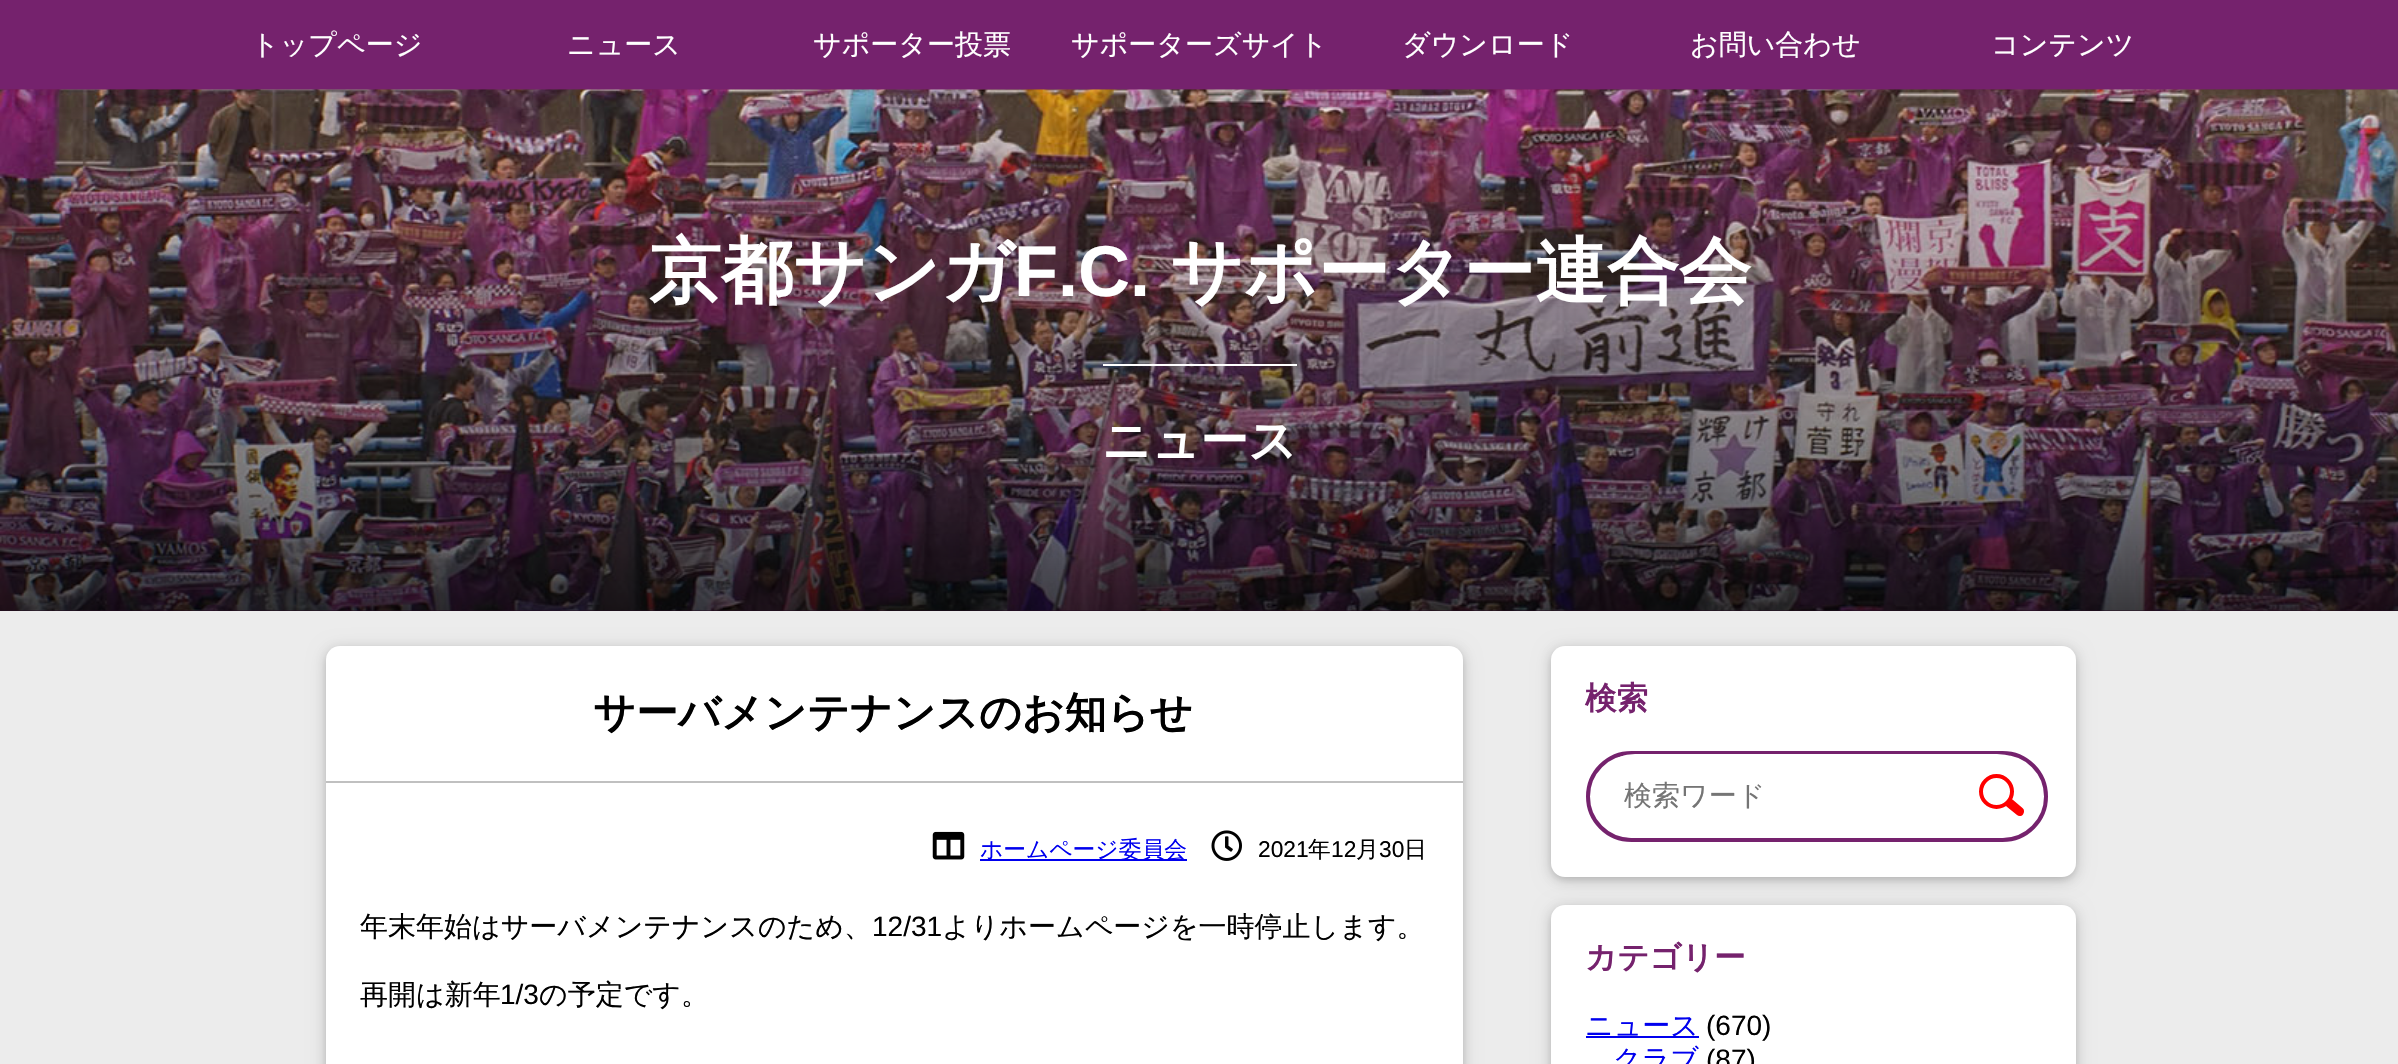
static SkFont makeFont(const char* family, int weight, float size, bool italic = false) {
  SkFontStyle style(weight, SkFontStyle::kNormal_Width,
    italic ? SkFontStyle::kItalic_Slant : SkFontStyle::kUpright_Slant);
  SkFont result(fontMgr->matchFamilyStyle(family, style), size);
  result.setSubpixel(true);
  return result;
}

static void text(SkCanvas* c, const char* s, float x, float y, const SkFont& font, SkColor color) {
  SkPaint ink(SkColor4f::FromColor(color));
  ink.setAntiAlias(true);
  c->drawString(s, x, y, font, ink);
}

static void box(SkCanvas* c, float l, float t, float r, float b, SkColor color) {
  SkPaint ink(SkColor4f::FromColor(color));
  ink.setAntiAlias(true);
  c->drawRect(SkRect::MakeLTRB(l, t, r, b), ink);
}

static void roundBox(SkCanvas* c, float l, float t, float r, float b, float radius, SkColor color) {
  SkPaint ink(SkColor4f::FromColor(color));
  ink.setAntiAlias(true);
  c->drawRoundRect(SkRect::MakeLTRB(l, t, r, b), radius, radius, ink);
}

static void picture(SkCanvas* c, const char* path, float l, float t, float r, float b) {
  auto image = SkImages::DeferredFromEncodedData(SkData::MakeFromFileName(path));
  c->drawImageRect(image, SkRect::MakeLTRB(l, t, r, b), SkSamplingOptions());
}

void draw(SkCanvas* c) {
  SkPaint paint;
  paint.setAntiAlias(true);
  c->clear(0xffececec);
  box(c, 0, 0, 2398, 611, 0xff75226d);
  SkFont face1 = makeFont("WenQuanYi Zen Hei", 500, 28);
  text(c, "トップページ", 251, 54, face1, 0xffffffff);
  text(c, "ニュース", 567, 54, face1, 0xffffffff);
  text(c, "サポーター投票", 813, 54, face1, 0xffffffff);
  text(c, "サポーターズサイト", 1071, 54, face1, 0xffffffff);
  text(c, "ダウンロード", 1402, 54, face1, 0xffffffff);
  text(c, "お問い合わせ", 1690, 54, face1, 0xffffffff);
  text(c, "コンテンツ", 1991, 54, face1, 0xffffffff);
  picture(c, "img_01.png", 0, 89, 2398, 611);
  {
    const SkColor colors[] = {0x1a752200, 0x66000000, 0xb3000000};
    const float stops[] = {0, 0.75f, 1};
    const SkPoint ends[] = {{1200, 89}, {1200, 611}};
    paint.setShader(SkGradientShader::MakeLinear(ends, colors, stops, 3, SkTileMode::kClamp));
    paint.setAlpha(255);
  }
  c->drawRect(SkRect::MakeLTRB(0, 89, 2398, 611), paint);
  SkFont face2 = makeFont("WenQuanYi Zen Hei", 700, 72);
  text(c, "京都サンガ", 649, 296, face2, 0xffffffff);
  SkFont face3 = makeFont("Liberation Sans", 700, 72);
  text(c, "F.C.", 1014, 296, face3, 0xffffffff);
  text(c, "サポーター連合会", 1170, 296, face2, 0xffffffff);
  box(c, 1103, 364, 1297, 366, 0xffffffff);
  SkFont face4 = makeFont("WenQuanYi Zen Hei", 700, 48);
  text(c, "ニュース", 1102, 457, face4, 0xffffffff);
  paint.setShader(nullptr);
  paint.setColor(0x1f000000);
  paint.setMaskFilter(SkMaskFilter::MakeBlur(kNormal_SkBlurStyle, 9));
  c->drawRoundRect(SkRect::MakeLTRB(326, 649, 1463, 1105), 14, 14, paint);
  paint.setMaskFilter(nullptr);
  paint.setColor(0x29000000);
  paint.setMaskFilter(SkMaskFilter::MakeBlur(kNormal_SkBlurStyle, 4.5f));
  c->drawRoundRect(SkRect::MakeLTRB(326, 649, 1463, 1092), 14, 14, paint);
  paint.setMaskFilter(nullptr);
  roundBox(c, 326, 646, 1463, 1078, 14, 0xffffffff);
  box(c, 326, 781, 1463, 783, 0xffc0c0c0);
  SkFont face5 = makeFont("WenQuanYi Zen Hei", 700, 42);
  text(c, "サーバメンテナンスのお知らせ", 593, 727, face5, 0xff000000);
  picture(c, "img_02.png", 932, 831, 965, 860);
  box(c, 980, 859, 1187, 861, 0xff0000ee);
  SkFont face6 = makeFont("WenQuanYi Zen Hei", 500, 22.75f);
  text(c, "ホームページ委員会", 980, 857, face6, 0xff0000ee);
  picture(c, "img_03.png", 1211, 830, 1242, 861);
  SkFont face7 = makeFont("Liberation Sans", 400, 22.75f);
  text(c, "2021", 1258, 857, face7, 0xff000000);
  text(c, "年", 1308, 857, face6, 0xff000000);
  text(c, "12", 1331, 857, face7, 0xff000000);
  text(c, "月", 1356, 857, face6, 0xff000000);
  text(c, "30", 1379, 857, face7, 0xff000000);
  text(c, "日", 1404, 857, face6, 0xff000000);
  text(c, "年末年始はサーバメンテナンスのため、", 360, 936, face1, 0xff000000);
  SkFont face8 = makeFont("Liberation Sans", 400, 28);
  text(c, "12/31", 872, 936, face8, 0xff000000);
  text(c, "よりホームページを一時停止します。", 942, 936, face1, 0xff000000);
  text(c, "再開は新年", 360, 1004, face1, 0xff000000);
  text(c, "1/3", 500, 1004, face8, 0xff000000);
  text(c, "の予定です。", 539, 1004, face1, 0xff000000);
  paint.setColor(0x1f000000);
  paint.setMaskFilter(SkMaskFilter::MakeBlur(kNormal_SkBlurStyle, 9));
  c->drawRoundRect(SkRect::MakeLTRB(1551, 649, 2076, 880), 14, 14, paint);
  paint.setMaskFilter(nullptr);
  paint.setColor(0x29000000);
  paint.setMaskFilter(SkMaskFilter::MakeBlur(kNormal_SkBlurStyle, 4.5f));
  c->drawRoundRect(SkRect::MakeLTRB(1551, 649, 2076, 880), 14, 14, paint);
  paint.setMaskFilter(nullptr);
  roundBox(c, 1551, 646, 2076, 877, 14, 0xffffffff);
  SkFont face9 = makeFont("WenQuanYi Zen Hei", 700, 31.5f);
  text(c, "検索", 1585, 709, face9, 0xff75226d);
  paint.setStyle(SkPaint::kStroke_Style);
  paint.setStrokeWidth(4);
  paint.setColor(0xff75226d);
  c->drawRoundRect(SkRect::MakeLTRB(1588, 753, 2046, 840), 43.5f, 43.5f, paint);
  roundBox(c, 1593, 754, 2039, 838, 42, 0xffffffff);
  text(c, "検索ワード", 1624, 805, face1, 0xff757575);
  paint.setStyle(SkPaint::kFill_Style);
  paint.setColor(0xffff0000);
  c->drawPath(SkPathBuilder().moveTo(2012.5f, 799.5f).lineTo(2022.5f, 808).cubicTo(2024.5f, 809.5f, 2024.5f, 812.5f, 2023, 814.5f).cubicTo(2021.5f, 816.5f, 2018.5f, 816.5f, 2017, 815).lineTo(2006.5f, 806.5f).cubicTo(2004.5f, 804.5f, 2004.5f, 802, 2006, 800).cubicTo(2007.5f, 798, 2010.5f, 798, 2012.5f, 799.5f).close().detach(), paint);
  paint.setColor(0xffffffff);
  c->drawCircle(1996.5f, 791.5f, 15.5f, paint);
  paint.setStyle(SkPaint::kStroke_Style);
  paint.setColor(0xffff0000);
  c->drawCircle(1996.5f, 791.5f, 15.5f, paint);
  paint.setStyle(SkPaint::kFill_Style);
  paint.setColor(0x1f000000);
  paint.setMaskFilter(SkMaskFilter::MakeBlur(kNormal_SkBlurStyle, 9));
  c->drawRoundRect(SkRect::MakeLTRB(1551, 908, 2076, 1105), 14, 14, paint);
  paint.setMaskFilter(nullptr);
  paint.setColor(0x29000000);
  paint.setMaskFilter(SkMaskFilter::MakeBlur(kNormal_SkBlurStyle, 4.5f));
  c->drawRoundRect(SkRect::MakeLTRB(1551, 908, 2076, 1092), 14, 14, paint);
  paint.setMaskFilter(nullptr);
  roundBox(c, 1551, 905, 2076, 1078, 14, 0xffffffff);
  text(c, "カテゴリー", 1585, 968, face9, 0xff75226d);
  box(c, 1586, 1036, 1699, 1038, 0xff0000ee);
  text(c, "ニュース", 1585, 1035, face1, 0xff0000ee);
  text(c, "(670)", 1706, 1035, face8, 0xff000000);
  text(c, "クラブ", 1613, 1069, face1, 0xff0000ee);
  text(c, "(87)", 1706, 1069, face8, 0xff000000);
}
